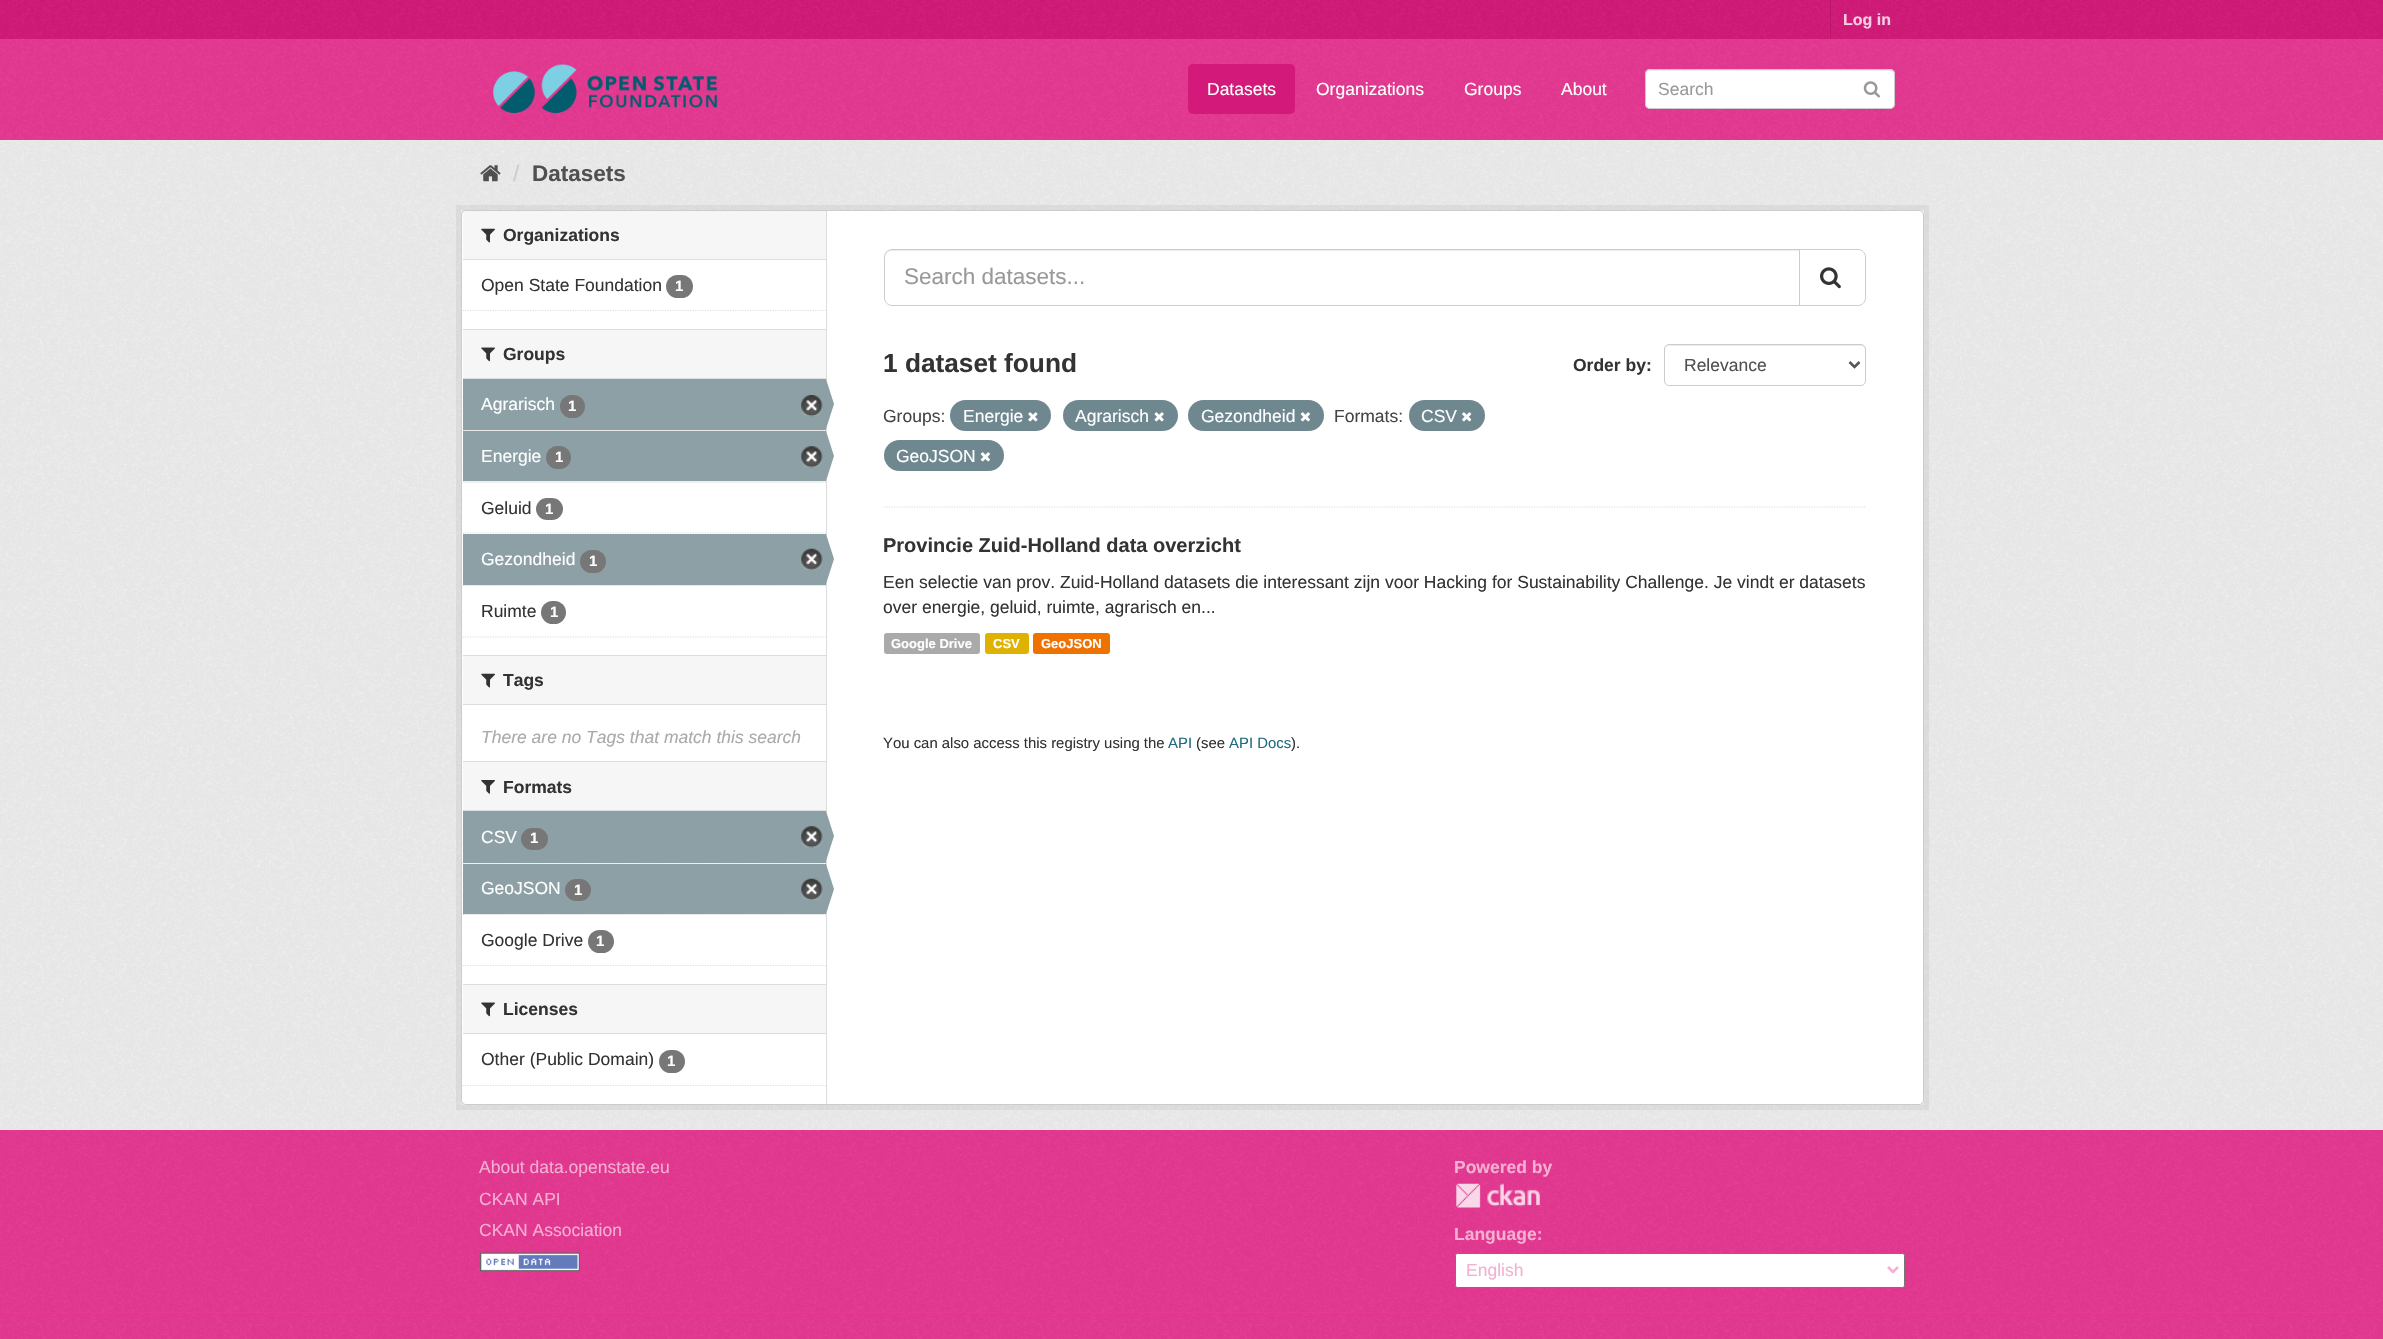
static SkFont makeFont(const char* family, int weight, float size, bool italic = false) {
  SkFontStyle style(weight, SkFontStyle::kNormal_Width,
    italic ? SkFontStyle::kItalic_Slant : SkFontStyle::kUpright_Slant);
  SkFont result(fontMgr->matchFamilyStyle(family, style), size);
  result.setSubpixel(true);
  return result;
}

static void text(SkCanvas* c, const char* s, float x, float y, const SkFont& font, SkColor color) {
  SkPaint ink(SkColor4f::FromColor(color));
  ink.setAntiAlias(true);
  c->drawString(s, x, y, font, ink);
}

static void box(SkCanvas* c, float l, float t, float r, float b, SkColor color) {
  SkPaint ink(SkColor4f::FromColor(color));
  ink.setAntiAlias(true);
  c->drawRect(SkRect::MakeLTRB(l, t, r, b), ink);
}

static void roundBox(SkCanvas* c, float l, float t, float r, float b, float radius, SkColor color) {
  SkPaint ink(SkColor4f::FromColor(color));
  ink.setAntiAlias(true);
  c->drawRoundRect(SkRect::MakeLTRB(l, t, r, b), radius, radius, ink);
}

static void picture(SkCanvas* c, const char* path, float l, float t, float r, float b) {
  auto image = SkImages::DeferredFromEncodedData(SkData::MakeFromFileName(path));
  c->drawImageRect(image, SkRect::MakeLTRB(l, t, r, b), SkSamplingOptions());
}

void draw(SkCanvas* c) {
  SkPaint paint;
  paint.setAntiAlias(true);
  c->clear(0xffe73892);
  picture(c, "img_01.png", 0, 1313, 2383, 1339);
  box(c, 0, 0, 2383, 39, 0xffd31979);
  picture(c, "img_02.png", 0, 0, 2383, 39);
  box(c, 1830, 0, 1831, 39, 0xffbc176c);
  SkFont face1 = makeFont("Liberation Sans", 700, 16);
  text(c, "Log in", 1843, 25, face1, 0xfff9cde4);
  picture(c, "img_03.png", 0, 39, 2383, 140);
  picture(c, "img_04.png", 492, 64, 718, 114);
  roundBox(c, 1188, 64, 1295, 114, 5, 0xffd31979);
  SkFont face2 = makeFont("Liberation Sans", 400, 17.5f);
  text(c, "Datasets", 1207, 95, face2, 0xffffffff);
  text(c, "Organizations", 1316, 95, face2, 0xffffffff);
  text(c, "Groups", 1464, 95, face2, 0xffffffff);
  text(c, "About", 1561, 95, face2, 0xffffffff);
  roundBox(c, 1645, 69, 1895, 109, 5, 0xffffffff);
  paint.setColor(0xffececec);
  c->drawPath(SkPathBuilder().moveTo(1650, 71).lineTo(1890, 71).cubicTo(1892, 71, 1894, 73, 1894, 75).lineTo(1894, 74).cubicTo(1894, 72, 1892, 70, 1890, 70).lineTo(1650, 70).cubicTo(1648, 70, 1646, 72, 1646, 74).lineTo(1646, 75).cubicTo(1646, 73, 1648, 71, 1650, 71).close().detach(), paint);
  paint.setStyle(SkPaint::kStroke_Style);
  paint.setStrokeWidth(1);
  paint.setColor(0xffcccccc);
  c->drawRoundRect(SkRect::MakeLTRB(1645.5f, 69.5f, 1894.5f, 108.5f), 4.5f, 4.5f, paint);
  text(c, "Search", 1658, 95, face2, 0xff999999);
  picture(c, "img_05.png", 1863, 81, 1880, 98);
  box(c, 0, 140, 2383, 1130, 0xffeeeeee);
  picture(c, "img_06.png", 0, 140, 2383, 1130);
  picture(c, "img_07.png", 480, 165, 501, 182);
  SkFont face3 = makeFont("Liberation Sans", 400, 22.5f);
  text(c, "/", 513, 181, face3, 0xffcccccc);
  SkFont face4 = makeFont("Liberation Sans", 700, 22.5f);
  text(c, "Datasets", 532, 181, face4, 0xff505050);
  paint.setStrokeWidth(5);
  paint.setColor(0x0d000000);
  c->drawRect(SkRect::MakeLTRB(458.5f, 207.5f, 1926.5f, 1107.5f), paint);
  paint.setStyle(SkPaint::kFill_Style);
  paint.setColor(0xffffffff);
  c->drawRoundRect(SkRect::MakeLTRB(461.5f, 210.5f, 1923.5f, 1104.5f), 4.5f, 4.5f, paint);
  paint.setStyle(SkPaint::kStroke_Style);
  paint.setStrokeWidth(1);
  paint.setColor(0xffcccccc);
  c->drawRoundRect(SkRect::MakeLTRB(461.5f, 210.5f, 1923.5f, 1104.5f), 4.5f, 4.5f, paint);
  paint.setStyle(SkPaint::kFill_Style);
  paint.setColor(0xfff6f6f6);
  c->drawPath(SkPathBuilder().moveTo(467, 211).lineTo(826, 211).lineTo(826, 260).lineTo(463, 260).lineTo(463, 215).cubicTo(463, 213, 465, 211, 467, 211).close().detach(), paint);
  box(c, 463, 259, 826, 260, 0xffdddddd);
  picture(c, "img_08.png", 481, 228, 495, 243);
  SkFont face5 = makeFont("Liberation Sans", 700, 17.5f);
  text(c, "Organizations", 503, 241, face5, 0xff333333);
  text(c, "Open State Foundation", 481, 291, face2, 0xff333333);
  roundBox(c, 666, 275, 693, 298, 11.5f, 0xff777777);
  SkFont face6 = makeFont("Liberation Sans", 700, 15);
  text(c, "1", 675, 291, face6, 0xffffffff);
  paint.setStyle(SkPaint::kStroke_Style);
  paint.setStrokeWidth(1.2f);
  paint.setColor(0xffdddddd);
  paint.setPathEffect(SkDashPathEffect::Make({{1.25f, 1.25f}}, 0));
  c->drawPath(SkPathBuilder().moveTo(462.5f, 310.5f).lineTo(826, 310.5f).detach(), paint);
  paint.setPathEffect(nullptr);
  box(c, 463, 330, 826, 378, 0xfff6f6f6);
  box(c, 463, 329, 826, 330, 0xffdddddd);
  box(c, 463, 378, 826, 379, 0xffdddddd);
  picture(c, "img_09.png", 481, 347, 495, 362);
  text(c, "Groups", 503, 360, face5, 0xff333333);
  box(c, 463, 430, 825, 431, 0xfff6f6f6);
  paint.setPathEffect(SkDashPathEffect::Make({{1.25f, 1.25f}}, 0));
  c->drawPath(SkPathBuilder().moveTo(462.5f, 430.5f).lineTo(826, 430.5f).detach(), paint);
  paint.setPathEffect(nullptr);
  box(c, 463, 379, 826, 430, 0xff8ca0a6);
  text(c, "Agrarisch", 481, 410, face2, 0xffffffff);
  roundBox(c, 560, 395, 585, 418, 11.5f, 0xff777777);
  text(c, "1", 568, 411, face6, 0xffffffff);
  picture(c, "img_10.png", 801, 395, 823, 417);
  box(c, 826, 211, 827, 1104, 0xffdddddd);
  paint.setStyle(SkPaint::kFill_Style);
  paint.setColor(0xff8ca0a6);
  c->drawPath(SkPathBuilder().moveTo(826, 429).lineTo(826, 379).lineTo(834, 404).close().detach(), paint);
  box(c, 463, 481, 826, 483, 0xfff6f6f6);
  paint.setStyle(SkPaint::kStroke_Style);
  paint.setColor(0xffdddddd);
  paint.setPathEffect(SkDashPathEffect::Make({{1.25f, 1.25f}}, 0));
  c->drawPath(SkPathBuilder().moveTo(462.5f, 482).lineTo(826, 482).detach(), paint);
  paint.setPathEffect(nullptr);
  box(c, 463, 431, 826, 481, 0xff8ca0a6);
  text(c, "Energie", 481, 462, face2, 0xffffffff);
  roundBox(c, 546, 446, 571, 469, 11.5f, 0xff777777);
  text(c, "1", 555, 462, face6, 0xffffffff);
  picture(c, "img_11.png", 801, 446, 823, 468);
  paint.setStyle(SkPaint::kFill_Style);
  paint.setColor(0xff8ca0a6);
  c->drawPath(SkPathBuilder().moveTo(826, 481).lineTo(826, 431).lineTo(834, 456).close().detach(), paint);
  paint.setStyle(SkPaint::kStroke_Style);
  paint.setColor(0xffdddddd);
  paint.setPathEffect(SkDashPathEffect::Make({{1.25f, 1.25f}}, 0));
  c->drawPath(SkPathBuilder().moveTo(462.5f, 533).lineTo(826, 533).detach(), paint);
  paint.setPathEffect(nullptr);
  text(c, "Geluid", 481, 514, face2, 0xff333333);
  roundBox(c, 536, 498, 563, 520, 11, 0xff777777);
  text(c, "1", 545, 514, face6, 0xffffffff);
  box(c, 463, 585, 825, 586, 0xfff6f6f6);
  paint.setPathEffect(SkDashPathEffect::Make({{1.25f, 1.25f}}, 0));
  c->drawPath(SkPathBuilder().moveTo(462.5f, 585.5f).lineTo(826, 585.5f).detach(), paint);
  paint.setPathEffect(nullptr);
  box(c, 463, 534, 826, 585, 0xff8ca0a6);
  text(c, "Gezondheid", 481, 565, face2, 0xffffffff);
  roundBox(c, 580, 550, 606, 573, 11.5f, 0xff777777);
  text(c, "1", 589, 566, face6, 0xffffffff);
  picture(c, "img_12.png", 801, 548, 823, 570);
  paint.setStyle(SkPaint::kFill_Style);
  paint.setColor(0xff8ca0a6);
  c->drawPath(SkPathBuilder().moveTo(826, 584).lineTo(826, 534).lineTo(834, 559).close().detach(), paint);
  text(c, "Ruimte", 481, 617, face2, 0xff333333);
  roundBox(c, 541, 601, 566, 624, 11.5f, 0xff777777);
  text(c, "1", 550, 617, face6, 0xffffffff);
  paint.setStyle(SkPaint::kStroke_Style);
  paint.setColor(0xffdddddd);
  paint.setPathEffect(SkDashPathEffect::Make({{1.25f, 1.25f}}, 0));
  c->drawPath(SkPathBuilder().moveTo(462.5f, 637).lineTo(826, 637).detach(), paint);
  paint.setPathEffect(nullptr);
  box(c, 463, 656, 826, 704, 0xfff6f6f6);
  box(c, 463, 655, 826, 656, 0xffdddddd);
  box(c, 463, 704, 826, 705, 0xffdddddd);
  picture(c, "img_08.png", 481, 673, 495, 688);
  text(c, "Tags", 503, 686, face5, 0xff333333);
  SkFont face7 = makeFont("Liberation Sans", 400, 17.5f, true);
  text(c, "There are no Tags that match this search", 481, 743, face7, 0xffaaaaaa);
  box(c, 463, 762, 826, 810, 0xfff6f6f6);
  box(c, 463, 761, 826, 762, 0xffdddddd);
  box(c, 463, 810, 826, 811, 0xffdddddd);
  picture(c, "img_13.png", 481, 780, 495, 794);
  text(c, "Formats", 503, 793, face5, 0xff333333);
  box(c, 463, 863, 826, 864, 0xfff6f6f6);
  paint.setPathEffect(SkDashPathEffect::Make({{1.25f, 1.25f}}, 0));
  c->drawPath(SkPathBuilder().moveTo(462.5f, 863).lineTo(826, 863).detach(), paint);
  paint.setPathEffect(nullptr);
  box(c, 463, 811, 826, 863, 0xff8ca0a6);
  text(c, "CSV", 481, 843, face2, 0xffffffff);
  roundBox(c, 521, 828, 548, 850, 11, 0xff777777);
  text(c, "1", 530, 843, face6, 0xffffffff);
  picture(c, "img_11.png", 801, 826, 823, 848);
  paint.setStyle(SkPaint::kFill_Style);
  paint.setColor(0xff8ca0a6);
  c->drawPath(SkPathBuilder().moveTo(826, 861).lineTo(826, 811).lineTo(834, 836).close().detach(), paint);
  box(c, 463, 914, 825, 915, 0xfff6f6f6);
  paint.setStyle(SkPaint::kStroke_Style);
  paint.setColor(0xffdddddd);
  paint.setPathEffect(SkDashPathEffect::Make({{1.25f, 1.25f}}, 0));
  c->drawPath(SkPathBuilder().moveTo(462.5f, 914.5f).lineTo(826, 914.5f).detach(), paint);
  paint.setPathEffect(nullptr);
  box(c, 463, 864, 826, 914, 0xff8ca0a6);
  text(c, "GeoJSON", 481, 894, face2, 0xffffffff);
  roundBox(c, 565, 879, 591, 901, 11, 0xff777777);
  text(c, "1", 574, 895, face6, 0xffffffff);
  picture(c, "img_12.png", 801, 878, 823, 900);
  paint.setStyle(SkPaint::kFill_Style);
  paint.setColor(0xff8ca0a6);
  c->drawPath(SkPathBuilder().moveTo(826, 914).lineTo(826, 864).lineTo(834, 889).close().detach(), paint);
  text(c, "Google Drive", 481, 946, face2, 0xff333333);
  roundBox(c, 588, 930, 614, 953, 11.5f, 0xff777777);
  text(c, "1", 596, 946, face6, 0xffffffff);
  paint.setStyle(SkPaint::kStroke_Style);
  paint.setColor(0xffdddddd);
  paint.setPathEffect(SkDashPathEffect::Make({{1.25f, 1.25f}}, 0));
  c->drawPath(SkPathBuilder().moveTo(462.5f, 965.5f).lineTo(826, 965.5f).detach(), paint);
  paint.setPathEffect(nullptr);
  box(c, 463, 985, 826, 1033, 0xfff6f6f6);
  box(c, 463, 984, 826, 985, 0xffdddddd);
  box(c, 463, 1033, 826, 1034, 0xffdddddd);
  picture(c, "img_09.png", 481, 1002, 495, 1017);
  text(c, "Licenses", 503, 1015, face5, 0xff333333);
  text(c, "Other (Public Domain)", 481, 1065, face2, 0xff333333);
  roundBox(c, 659, 1050, 685, 1073, 11.5f, 0xff777777);
  text(c, "1", 667, 1066, face6, 0xffffffff);
  paint.setPathEffect(SkDashPathEffect::Make({{1.25f, 1.25f}}, 0));
  c->drawPath(SkPathBuilder().moveTo(462.5f, 1085.5f).lineTo(826, 1085.5f).detach(), paint);
  paint.setPathEffect(nullptr);
  paint.setPathEffect(SkDashPathEffect::Make({{1.25f, 1.25f}}, 0));
  c->drawPath(SkPathBuilder().moveTo(884, 507).lineTo(1866, 507).detach(), paint);
  paint.setPathEffect(nullptr);
  paint.setStyle(SkPaint::kFill_Style);
  paint.setColor(0xffececec);
  c->drawPath(SkPathBuilder().moveTo(891, 251).lineTo(1799, 251).lineTo(1799, 250).lineTo(891, 250).cubicTo(886, 250, 885, 254, 885, 258).cubicTo(885, 254, 888, 251, 891, 251).close().detach(), paint);
  paint.setStyle(SkPaint::kStroke_Style);
  paint.setStrokeWidth(1);
  paint.setColor(0xffcccccc);
  c->drawPath(SkPathBuilder().moveTo(892, 249.5f).lineTo(1799.5f, 249.5f).lineTo(1799.5f, 305.5f).lineTo(892, 305.5f).cubicTo(888, 305.5f, 884.5f, 302, 884.5f, 298).lineTo(884.5f, 257).cubicTo(884.5f, 253, 888, 249.5f, 892, 249.5f).close().detach(), paint);
  text(c, "Search datasets...", 904, 284, face3, 0xff999999);
  paint.setStyle(SkPaint::kFill_Style);
  paint.setColor(0xffffffff);
  c->drawPath(SkPathBuilder().moveTo(1799.5f, 249.5f).lineTo(1858, 249.5f).cubicTo(1862, 249.5f, 1865.5f, 253, 1865.5f, 257).lineTo(1865.5f, 298).cubicTo(1865.5f, 302, 1862, 305.5f, 1858, 305.5f).lineTo(1799.5f, 305.5f).close().detach(), paint);
  paint.setStyle(SkPaint::kStroke_Style);
  paint.setColor(0xffcccccc);
  c->drawPath(SkPathBuilder().moveTo(1799.5f, 249.5f).lineTo(1858, 249.5f).cubicTo(1862, 249.5f, 1865.5f, 253, 1865.5f, 257).lineTo(1865.5f, 298).cubicTo(1865.5f, 302, 1862, 305.5f, 1858, 305.5f).lineTo(1799.5f, 305.5f).close().detach(), paint);
  picture(c, "img_14.png", 1820, 267, 1841, 289);
  SkFont face8 = makeFont("Liberation Sans", 700, 26.25f);
  text(c, "1 dataset found", 883, 372, face8, 0xff333333);
  text(c, "Order by:", 1573, 371, face5, 0xff333333);
  paint.setStyle(SkPaint::kFill_Style);
  paint.setColor(0xffececec);
  c->drawPath(SkPathBuilder().moveTo(1669, 346).lineTo(1861, 346).cubicTo(1863, 346, 1865, 348, 1865, 350).lineTo(1865, 349).cubicTo(1865, 347, 1863, 345, 1861, 345).lineTo(1669, 345).cubicTo(1667, 345, 1665, 347, 1665, 349).lineTo(1665, 350).cubicTo(1665, 348, 1667, 346, 1669, 346).close().detach(), paint);
  paint.setStyle(SkPaint::kStroke_Style);
  paint.setColor(0xffcccccc);
  c->drawRoundRect(SkRect::MakeLTRB(1664.5f, 344.5f, 1865.5f, 385.5f), 4.5f, 4.5f, paint);
  paint.setStrokeWidth(2.5f);
  paint.setColor(0xff555555);
  c->drawPath(SkPathBuilder().moveTo(1849.5f, 362).lineTo(1854.5f, 367).lineTo(1859.5f, 362).detach(), paint);
  text(c, "Relevance", 1684, 371, face2, 0xff505050);
  text(c, "Groups:", 883, 422, face2, 0xff444444);
  roundBox(c, 950, 400, 1051, 431, 15.5f, 0xff6f8890);
  text(c, "Energie", 963, 422, face2, 0xffffffff);
  picture(c, "img_15.png", 1028, 412, 1038, 422);
  roundBox(c, 1063, 400, 1178, 431, 15.5f, 0xff6f8890);
  text(c, "Agrarisch", 1075, 422, face2, 0xffffffff);
  picture(c, "img_16.png", 1154, 412, 1164, 422);
  roundBox(c, 1188, 400, 1324, 431, 15.5f, 0xff6f8890);
  text(c, "Gezondheid", 1201, 422, face2, 0xffffffff);
  picture(c, "img_17.png", 1300, 412, 1310, 422);
  text(c, "Formats:", 1334, 422, face2, 0xff444444);
  roundBox(c, 1409, 400, 1485, 431, 15.5f, 0xff6f8890);
  text(c, "CSV", 1421, 422, face2, 0xffffffff);
  picture(c, "img_18.png", 1462, 412, 1472, 422);
  roundBox(c, 884, 440, 1004, 471, 15.5f, 0xff6f8890);
  text(c, "GeoJSON", 896, 462, face2, 0xffffffff);
  picture(c, "img_17.png", 980, 452, 990, 462);
  SkFont face9 = makeFont("Liberation Sans", 700, 20);
  text(c, "Provincie Zuid-Holland data overzicht", 883, 552, face9, 0xff333333);
  text(c, "Een selectie van prov. Zuid-Holland datasets die interessant zijn voor Hacking for Sustainability Challenge. Je vindt er datasets", 883, 588, face2, 0xff333333);
  text(c, "over energie, geluid, ruimte, agrarisch en...", 883, 613, face2, 0xff333333);
  roundBox(c, 884, 633, 980, 654, 3, 0xffaaaaaa);
  SkFont face10 = makeFont("Liberation Sans", 700, 13);
  text(c, "Google Drive", 891, 648, face10, 0xffffffff);
  roundBox(c, 985, 633, 1029, 654, 3, 0xffdfb100);
  text(c, "CSV", 993, 648, face10, 0xffffffff);
  roundBox(c, 1033, 633, 1110, 654, 3, 0xffef7100);
  text(c, "GeoJSON", 1041, 648, face10, 0xffffffff);
  SkFont face11 = makeFont("Liberation Sans", 400, 14.9f);
  text(c, "You can also access this registry using the", 883, 748, face11, 0xff333333);
  text(c, "API", 1168, 748, face11, 0xff206b82);
  text(c, "(see", 1196, 748, face11, 0xff333333);
  text(c, "API Docs", 1229, 748, face11, 0xff206b82);
  text(c, ").", 1291, 748, face11, 0xff333333);
  picture(c, "img_19.png", 0, 1130, 2383, 1312);
  text(c, "About data.openstate.eu", 479, 1173, face2, 0xfff5afd3);
  text(c, "CKAN API", 479, 1205, face2, 0xfff5afd3);
  text(c, "CKAN Association", 479, 1236, face2, 0xfff5afd3);
  picture(c, "img_20.png", 480, 1252, 580, 1272);
  text(c, "Powered by", 1454, 1173, face5, 0xfff5afd3);
  picture(c, "img_21.png", 1456, 1183, 1540, 1208);
  text(c, "Language:", 1454, 1240, face5, 0xfff5afd3);
  paint.setStyle(SkPaint::kFill_Style);
  paint.setColor(0xffffffff);
  c->drawRoundRect(SkRect::MakeLTRB(1455.5f, 1253.5f, 1904.5f, 1287.5f), 2, 2, paint);
  paint.setStyle(SkPaint::kStroke_Style);
  paint.setStrokeWidth(1);
  paint.setColor(0xff767676);
  c->drawRoundRect(SkRect::MakeLTRB(1455.5f, 1253.5f, 1904.5f, 1287.5f), 2, 2, paint);
  paint.setStrokeWidth(2.5f);
  paint.setColor(0xfff5afd3);
  c->drawPath(SkPathBuilder().moveTo(1888, 1267).lineTo(1893, 1272).lineTo(1898, 1267).detach(), paint);
  text(c, "English", 1466, 1276, face2, 0xfff5afd3);
}
